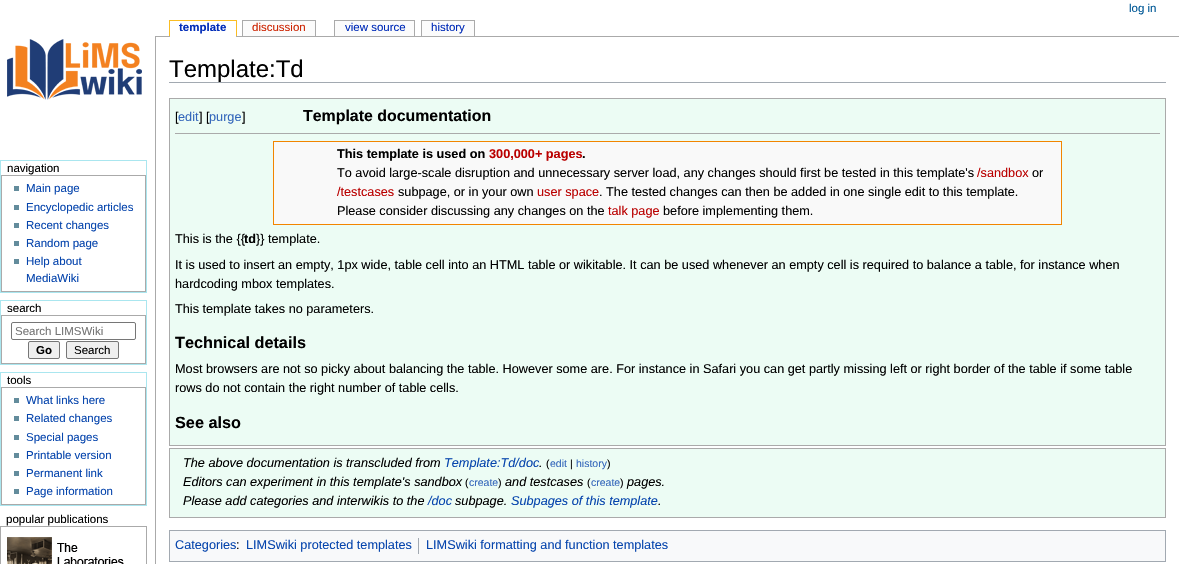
static SkFont makeFont(const char* family, int weight, float size, bool italic = false) {
  SkFontStyle style(weight, SkFontStyle::kNormal_Width,
    italic ? SkFontStyle::kItalic_Slant : SkFontStyle::kUpright_Slant);
  SkFont result(fontMgr->matchFamilyStyle(family, style), size);
  result.setSubpixel(true);
  return result;
}

static void text(SkCanvas* c, const char* s, float x, float y, const SkFont& font, SkColor color) {
  SkPaint ink(SkColor4f::FromColor(color));
  ink.setAntiAlias(true);
  c->drawString(s, x, y, font, ink);
}

static void box(SkCanvas* c, float l, float t, float r, float b, SkColor color) {
  SkPaint ink(SkColor4f::FromColor(color));
  ink.setAntiAlias(true);
  c->drawRect(SkRect::MakeLTRB(l, t, r, b), ink);
}

static void picture(SkCanvas* c, const char* path, float l, float t, float r, float b) {
  auto image = SkImages::DeferredFromEncodedData(SkData::MakeFromFileName(path));
  c->drawImageRect(image, SkRect::MakeLTRB(l, t, r, b), SkSamplingOptions());
}

void draw(SkCanvas* c) {
  SkPaint paint;
  paint.setAntiAlias(true);
  c->clear(0xffffffff);
  SkFont face1 = makeFont("Liberation Sans", 400, 11.5f);
  text(c, "log in", 1129, 12, face1, 0xff005896);
  SkFont face2 = makeFont("Liberation Sans", 700, 11.5f);
  text(c, "template", 179, 31, face2, 0xff002bb8);
  box(c, 169, 20, 237, 21, 0xfffabd23);
  box(c, 236, 20, 237, 36, 0xfffabd23);
  box(c, 169, 20, 170, 36, 0xfffabd23);
  box(c, 155, 36, 1179, 37, 0xffaaaaaa);
  box(c, 170, 36, 236, 37, 0xffffffff);
  box(c, 243, 21, 315, 36, 0xfffbfbfb);
  text(c, "discussion", 252, 31, face1, 0xffcc2200);
  box(c, 242, 20, 316, 21, 0xffaaaaaa);
  box(c, 315, 20, 316, 36, 0xffaaaaaa);
  box(c, 242, 20, 243, 36, 0xffaaaaaa);
  box(c, 335, 21, 414, 36, 0xfffbfbfb);
  text(c, "view source", 345, 31, face1, 0xff002bb8);
  box(c, 334, 20, 415, 21, 0xffaaaaaa);
  box(c, 414, 20, 415, 36, 0xffaaaaaa);
  box(c, 334, 20, 335, 36, 0xffaaaaaa);
  box(c, 422, 21, 474, 36, 0xfffbfbfb);
  text(c, "history", 431, 31, face1, 0xff002bb8);
  box(c, 421, 20, 475, 21, 0xffaaaaaa);
  box(c, 474, 20, 475, 36, 0xffaaaaaa);
  box(c, 421, 20, 422, 36, 0xffaaaaaa);
  picture(c, "img_01.png", 7, 39, 142, 100);
  paint.setStyle(SkPaint::kStroke_Style);
  paint.setStrokeWidth(1);
  paint.setColor(0xffaae6ef);
  c->drawRect(SkRect::MakeLTRB(0.5f, 160.5f, 146.5f, 292.5f), paint);
  text(c, "navigation", 7, 172, face1, 0xff000000);
  paint.setColor(0xffaaaaaa);
  c->drawRect(SkRect::MakeLTRB(1.5f, 175.5f, 145.5f, 291.5f), paint);
  box(c, 14, 186, 19, 191, 0xff638c9c);
  text(c, "Main page", 26, 192, face1, 0xff0645ad);
  box(c, 14, 205, 19, 210, 0xff638c9c);
  text(c, "Encyclopedic articles", 26, 211, face1, 0xff0645ad);
  box(c, 14, 223, 19, 228, 0xff638c9c);
  text(c, "Recent changes", 26, 229, face1, 0xff0645ad);
  box(c, 14, 241, 19, 246, 0xff638c9c);
  text(c, "Random page", 26, 247, face1, 0xff0645ad);
  box(c, 14, 259, 19, 264, 0xff638c9c);
  text(c, "Help about", 26, 265, face1, 0xff0645ad);
  text(c, "MediaWiki", 26, 282, face1, 0xff0645ad);
  paint.setColor(0xffaae6ef);
  c->drawRect(SkRect::MakeLTRB(0.5f, 300.5f, 146.5f, 364.5f), paint);
  text(c, "search", 7, 312, face1, 0xff000000);
  paint.setColor(0xffaaaaaa);
  c->drawRect(SkRect::MakeLTRB(1.5f, 315.5f, 145.5f, 363.5f), paint);
  paint.setColor(0xff767676);
  c->drawRoundRect(SkRect::MakeLTRB(11.5f, 322.5f, 135.5f, 339.5f), 1.5f, 1.5f, paint);
  text(c, "Search LIMSWiki", 15, 335, face1, 0xff757575);
  paint.setStyle(SkPaint::kFill_Style);
  paint.setColor(0xffefefef);
  c->drawRoundRect(SkRect::MakeLTRB(28.5f, 341.5f, 59.5f, 358.5f), 1.5f, 1.5f, paint);
  paint.setStyle(SkPaint::kStroke_Style);
  paint.setColor(0xff767676);
  c->drawRoundRect(SkRect::MakeLTRB(28.5f, 341.5f, 59.5f, 358.5f), 1.5f, 1.5f, paint);
  text(c, "Go", 36, 354, face2, 0xff000000);
  paint.setStyle(SkPaint::kFill_Style);
  paint.setColor(0xffefefef);
  c->drawRoundRect(SkRect::MakeLTRB(66.5f, 341.5f, 118.5f, 358.5f), 1.5f, 1.5f, paint);
  paint.setStyle(SkPaint::kStroke_Style);
  paint.setColor(0xff767676);
  c->drawRoundRect(SkRect::MakeLTRB(66.5f, 341.5f, 118.5f, 358.5f), 1.5f, 1.5f, paint);
  text(c, "Search", 74, 354, face1, 0xff000000);
  paint.setColor(0xffaae6ef);
  c->drawRect(SkRect::MakeLTRB(0.5f, 372.5f, 146.5f, 505.5f), paint);
  text(c, "tools", 7, 384, face1, 0xff000000);
  paint.setColor(0xffaaaaaa);
  c->drawRect(SkRect::MakeLTRB(1.5f, 387.5f, 145.5f, 504.5f), paint);
  box(c, 14, 398, 19, 403, 0xff638c9c);
  text(c, "What links here", 26, 404, face1, 0xff0645ad);
  box(c, 14, 416, 19, 421, 0xff638c9c);
  text(c, "Related changes", 26, 422, face1, 0xff0645ad);
  box(c, 14, 435, 19, 440, 0xff638c9c);
  text(c, "Special pages", 26, 441, face1, 0xff0645ad);
  box(c, 14, 453, 19, 458, 0xff638c9c);
  text(c, "Printable version", 26, 459, face1, 0xff0645ad);
  box(c, 14, 471, 19, 476, 0xff638c9c);
  text(c, "Permanent link", 26, 477, face1, 0xff0645ad);
  box(c, 14, 489, 19, 494, 0xff638c9c);
  text(c, "Page information", 26, 495, face1, 0xff0645ad);
  text(c, "popular publications", 6, 523, face1, 0xff000000);
  c->drawRect(SkRect::MakeLTRB(0.5f, 526.5f, 146.5f, 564.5f), paint);
  picture(c, "img_02.png", 7, 537, 124, 564);
  box(c, 155, 36, 156, 564, 0xffaaaaaa);
  box(c, 169, 82, 1166, 83, 0xffa2a9b1);
  SkFont face3 = makeFont("Liberation Sans", 400, 24);
  text(c, "Template:Td", 169, 77, face3, 0xff000000);
  paint.setStyle(SkPaint::kFill_Style);
  paint.setColor(0xffecfcf4);
  c->drawRect(SkRect::MakeLTRB(169.5f, 98.5f, 1165.5f, 445.5f), paint);
  paint.setStyle(SkPaint::kStroke_Style);
  paint.setColor(0xffaaaaaa);
  c->drawRect(SkRect::MakeLTRB(169.5f, 98.5f, 1165.5f, 445.5f), paint);
  box(c, 175, 133, 1160, 134, 0xffaaaaaa);
  SkFont face4 = makeFont("Liberation Sans", 400, 12.7f);
  text(c, "[", 175, 121, face4, 0xff000000);
  text(c, "edit", 178, 121, face4, 0xff3366bb);
  text(c, "] [", 199, 121, face4, 0xff000000);
  text(c, "purge", 209, 121, face4, 0xff3366bb);
  text(c, "]", 242, 121, face4, 0xff000000);
  SkFont face5 = makeFont("Liberation Sans", 700, 15.9f);
  text(c, "Template documentation", 303, 121, face5, 0xff000000);
  box(c, 274, 142, 1061, 224, 0xfff9f9f9);
  box(c, 273, 141, 1062, 142, 0xfff28500);
  box(c, 1061, 141, 1062, 225, 0xfff28500);
  box(c, 273, 224, 1062, 225, 0xfff28500);
  box(c, 273, 141, 274, 225, 0xfff28500);
  SkFont face6 = makeFont("Liberation Sans", 700, 12.7f);
  text(c, "This template is used on", 337, 158, face6, 0xff000000);
  text(c, "300,000+ pages", 489, 158, face6, 0xffba0000);
  text(c, ".", 582, 158, face6, 0xff000000);
  text(c, "To avoid large-scale disruption and unnecessary server load, any changes should first be tested in this template's", 337, 177, face4, 0xff000000);
  text(c, "/sandbox", 977, 177, face4, 0xffba0000);
  text(c, "or", 1032, 177, face4, 0xff000000);
  text(c, "/testcases", 337, 196, face4, 0xffba0000);
  text(c, "subpage, or in your own", 398, 196, face4, 0xff000000);
  text(c, "user space", 537, 196, face4, 0xffba0000);
  text(c, ". The tested changes can then be added in one single edit to this template.", 599, 196, face4, 0xff000000);
  text(c, "Please consider discussing any changes on the", 337, 215, face4, 0xff000000);
  text(c, "talk page", 608, 215, face4, 0xffba0000);
  text(c, "before implementing them.", 663, 215, face4, 0xff000000);
  text(c, "This is the {{", 175, 243, face4, 0xff000000);
  text(c, "td", 244, 243, face6, 0xff000000);
  text(c, "}} template.", 256, 243, face4, 0xff000000);
  text(c, "It is used to insert an empty, 1px wide, table cell into an HTML table or wikitable. It can be used whenever an empty cell is required to balance a table, for instance when", 175, 269, face4, 0xff000000);
  text(c, "hardcoding mbox templates.", 175, 288, face4, 0xff000000);
  text(c, "This template takes no parameters.", 175, 313, face4, 0xff000000);
  SkFont face7 = makeFont("Liberation Sans", 700, 16.25f);
  text(c, "Technical details", 175, 348, face7, 0xff000000);
  text(c, "Most browsers are not so picky about balancing the table. However some are. For instance in Safari you can get partly missing left or right border of the table if some table", 175, 373, face4, 0xff000000);
  text(c, "rows do not contain the right number of table cells.", 175, 392, face4, 0xff000000);
  text(c, "See also", 175, 428, face7, 0xff000000);
  paint.setStyle(SkPaint::kFill_Style);
  paint.setColor(0xffecfcf4);
  c->drawRect(SkRect::MakeLTRB(169.5f, 448.5f, 1165.5f, 517.5f), paint);
  paint.setStyle(SkPaint::kStroke_Style);
  paint.setColor(0xffaaaaaa);
  c->drawRect(SkRect::MakeLTRB(169.5f, 448.5f, 1165.5f, 517.5f), paint);
  SkFont face8 = makeFont("Liberation Sans", 400, 12.7f, true);
  text(c, "The above documentation is transcluded from", 183, 467, face8, 0xff000000);
  text(c, "Template:Td/doc", 444, 467, face8, 0xff0645ad);
  text(c, ".", 539, 467, face8, 0xff000000);
  SkFont face9 = makeFont("Liberation Sans", 400, 10.5f);
  text(c, "(", 546, 467, face9, 0xff000000);
  text(c, "edit", 550, 467, face9, 0xff3366bb);
  text(c, "|", 570, 467, face9, 0xff000000);
  text(c, "history", 576, 467, face9, 0xff3366bb);
  text(c, ")", 607, 467, face9, 0xff000000);
  text(c, "Editors can experiment in this template's sandbox", 183, 486, face8, 0xff000000);
  text(c, "(", 465, 486, face9, 0xff000000);
  text(c, "create", 469, 486, face9, 0xff3366bb);
  text(c, ")", 498, 486, face9, 0xff000000);
  text(c, "and testcases", 505, 486, face8, 0xff000000);
  text(c, "(", 587, 486, face9, 0xff000000);
  text(c, "create", 591, 486, face9, 0xff3366bb);
  text(c, ")", 620, 486, face9, 0xff000000);
  text(c, "pages.", 627, 486, face8, 0xff000000);
  text(c, "Please add categories and interwikis to the", 183, 505, face8, 0xff000000);
  text(c, "/doc", 428, 505, face8, 0xff0645ad);
  text(c, "subpage.", 455, 505, face8, 0xff000000);
  text(c, "Subpages of this template", 511, 505, face8, 0xff0645ad);
  text(c, ".", 658, 505, face8, 0xff000000);
  paint.setStyle(SkPaint::kFill_Style);
  paint.setColor(0xfff8f9fa);
  c->drawRect(SkRect::MakeLTRB(169.5f, 530.5f, 1165.5f, 561.5f), paint);
  paint.setStyle(SkPaint::kStroke_Style);
  paint.setColor(0xffa2a9b1);
  c->drawRect(SkRect::MakeLTRB(169.5f, 530.5f, 1165.5f, 561.5f), paint);
  text(c, "Categories", 175, 549, face4, 0xff0645ad);
  text(c, ":", 236, 549, face4, 0xff000000);
  text(c, "LIMSwiki protected templates", 246, 549, face4, 0xff0645ad);
  box(c, 418, 538, 419, 554, 0xffa2a9b1);
  text(c, "LIMSwiki formatting and function templates", 426, 549, face4, 0xff0645ad);
}
